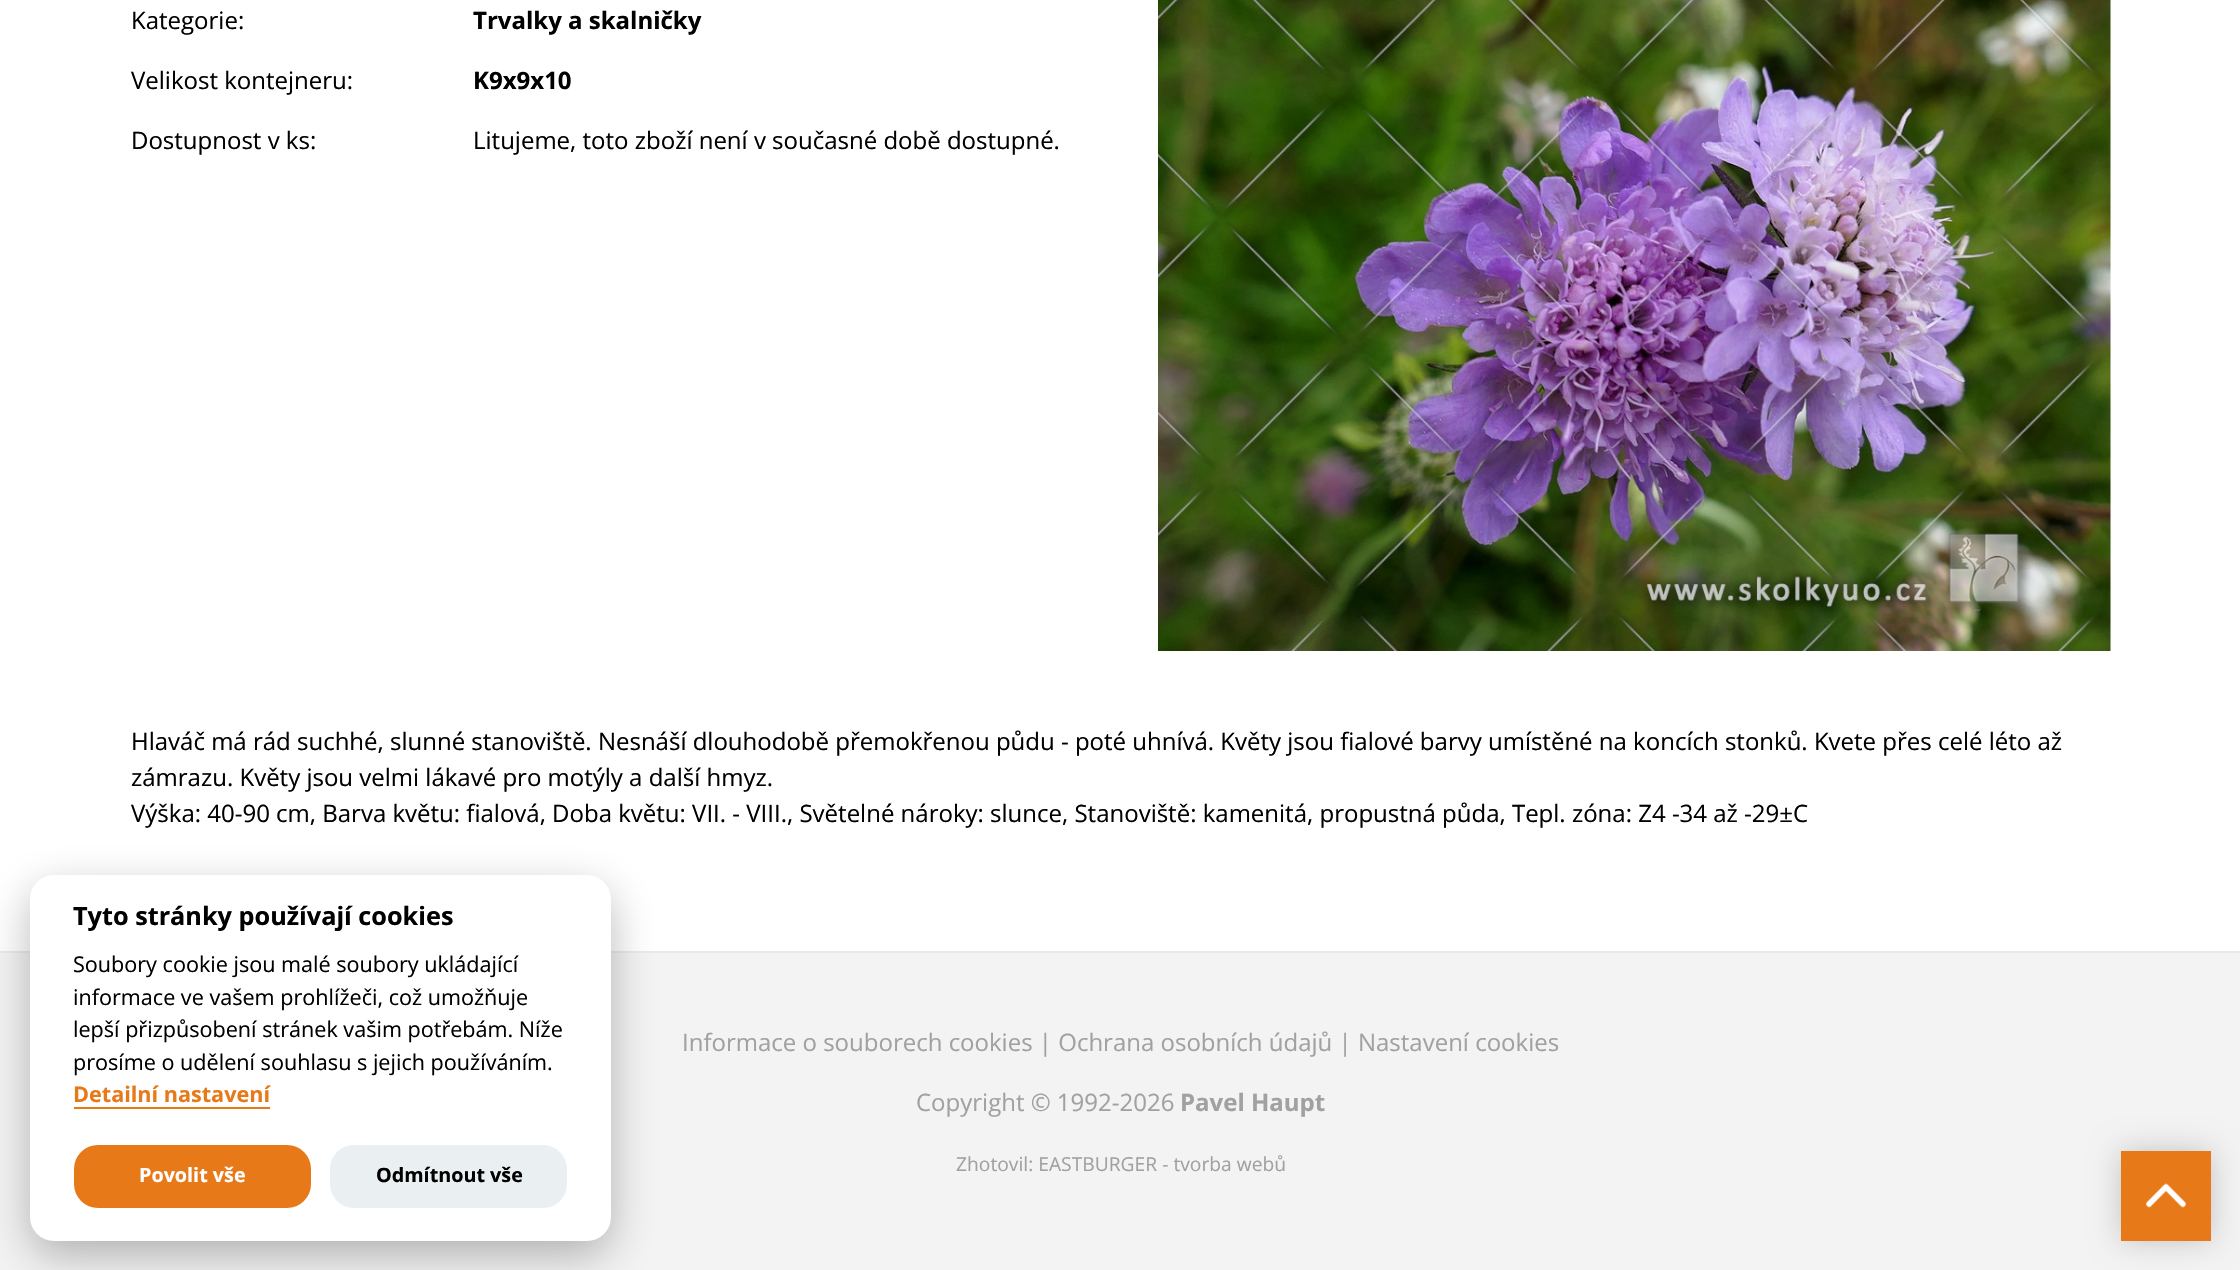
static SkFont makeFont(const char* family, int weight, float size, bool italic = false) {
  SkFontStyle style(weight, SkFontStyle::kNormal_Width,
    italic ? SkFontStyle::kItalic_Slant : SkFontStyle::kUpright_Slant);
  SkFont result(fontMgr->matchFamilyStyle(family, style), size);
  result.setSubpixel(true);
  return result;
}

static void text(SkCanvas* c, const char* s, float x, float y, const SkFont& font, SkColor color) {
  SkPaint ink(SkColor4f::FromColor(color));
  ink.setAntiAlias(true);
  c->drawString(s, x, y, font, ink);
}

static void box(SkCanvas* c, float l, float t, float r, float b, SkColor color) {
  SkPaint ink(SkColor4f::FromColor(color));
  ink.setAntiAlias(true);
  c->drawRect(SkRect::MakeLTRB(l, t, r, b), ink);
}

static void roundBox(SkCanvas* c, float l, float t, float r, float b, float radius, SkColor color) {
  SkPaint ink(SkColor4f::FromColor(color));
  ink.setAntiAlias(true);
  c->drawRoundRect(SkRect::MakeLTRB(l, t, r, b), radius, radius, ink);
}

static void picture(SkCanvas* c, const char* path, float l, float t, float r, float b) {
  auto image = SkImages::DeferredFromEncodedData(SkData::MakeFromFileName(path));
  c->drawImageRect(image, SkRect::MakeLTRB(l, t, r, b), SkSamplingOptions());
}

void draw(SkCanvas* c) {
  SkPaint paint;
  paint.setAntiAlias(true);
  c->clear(0xfff3f3f3);
  box(c, 0, 0, 2240, 951, 0xffffffff);
  SkFont face1 = makeFont("Open Sans", 400, 24);
  text(c, "Kategorie:", 131, 29, face1, 0xff000000);
  SkFont face2 = makeFont("Open Sans", 700, 24);
  text(c, "Trvalky a skalničky", 473, 29, face2, 0xff000000);
  text(c, "Velikost kontejneru:", 131, 89, face1, 0xff000000);
  text(c, "K9x9x10", 473, 89, face2, 0xff000000);
  text(c, "Dostupnost v ks:", 131, 149, face1, 0xff000000);
  text(c, "Litujeme, toto zboží není v současné době dostupné.", 473, 149, face1, 0xff000000);
  picture(c, "img_01.png", 1158, 0, 2111, 651);
  text(c, "Hlaváč má rád suchhé, slunné stanoviště. Nesnáší dlouhodobě přemokřenou půdu - poté uhnívá. Květy jsou fialové barvy umístěné na koncích stonků. Kvete přes celé léto až", 131, 750, face1, 0xff000000);
  text(c, "zámrazu. Květy jsou velmi lákavé pro motýly a další hmyz.", 131, 786, face1, 0xff000000);
  text(c, "Výška: 40-90 cm, Barva květu: fialová, Doba květu: VII. - VIII., Světelné nároky: slunce, Stanoviště: kamenitá, propustná půda, Tepl. zóna: Z4 -34 až -29±C", 131, 822, face1, 0xff000000);
  box(c, 0, 951, 2240, 953, 0xffeaeaea);
  paint.setColor(0x47020203);
  paint.setMaskFilter(SkMaskFilter::MakeBlur(kNormal_SkBlurStyle, 22.5f));
  c->drawRoundRect(SkRect::MakeLTRB(30, 890, 611, 1256), 24, 24, paint);
  paint.setMaskFilter(nullptr);
  roundBox(c, 30, 875, 611, 1241, 24, 0xffffffff);
  SkFont face3 = makeFont("Open Sans", 700, 25.25f);
  text(c, "Tyto stránky používají cookies", 73, 925, face3, 0xff000000);
  SkFont face4 = makeFont("Open Sans", 400, 21.6f);
  text(c, "Soubory cookie jsou malé soubory ukládající", 73, 972, face4, 0xff000000);
  text(c, "informace ve vašem prohlížeči, což umožňuje", 73, 1005, face4, 0xff000000);
  text(c, "lepší přizpůsobení stránek vašim potřebám. Níže", 73, 1037, face4, 0xff000000);
  text(c, "prosíme o udělení souhlasu s jejich používáním.", 73, 1070, face4, 0xff000000);
  SkFont face5 = makeFont("Open Sans", 700, 21.6f);
  text(c, "Detailní nastavení", 73, 1102, face5, 0xffe77918);
  box(c, 74, 1107, 270, 1109, 0xffe77918);
  roundBox(c, 74, 1145, 311, 1208, 24, 0xffe77918);
  SkFont face6 = makeFont("Open Sans", 700, 19.75f);
  text(c, "Povolit vše", 139, 1182, face6, 0xffffffff);
  roundBox(c, 330, 1145, 567, 1208, 24, 0xffeaeff2);
  text(c, "Odmítnout vše", 376, 1182, face6, 0xff000000);
  text(c, "Informace o souborech cookies | Ochrana osobních údajů | Nastavení cookies", 682, 1051, face1, 0xffa1a1a1);
  text(c, "Copyright © 1992-2026", 916, 1111, face1, 0xffa1a1a1);
  text(c, "Pavel Haupt", 1180, 1111, face2, 0xffa1a1a1);
  SkFont face7 = makeFont("Open Sans", 400, 19.25f);
  text(c, "Zhotovil: EASTBURGER - tvorba webů", 956, 1171, face7, 0xffa1a1a1);
  paint.setColor(0x33000000);
  paint.setMaskFilter(SkMaskFilter::MakeBlur(kNormal_SkBlurStyle, 15));
  c->drawRect(SkRect::MakeLTRB(2121, 1151, 2211, 1241), paint);
  paint.setMaskFilter(nullptr);
  box(c, 2121, 1151, 2211, 1241, 0xffe77918);
  picture(c, "img_02.png", 2146, 1183, 2186, 1208);
}
